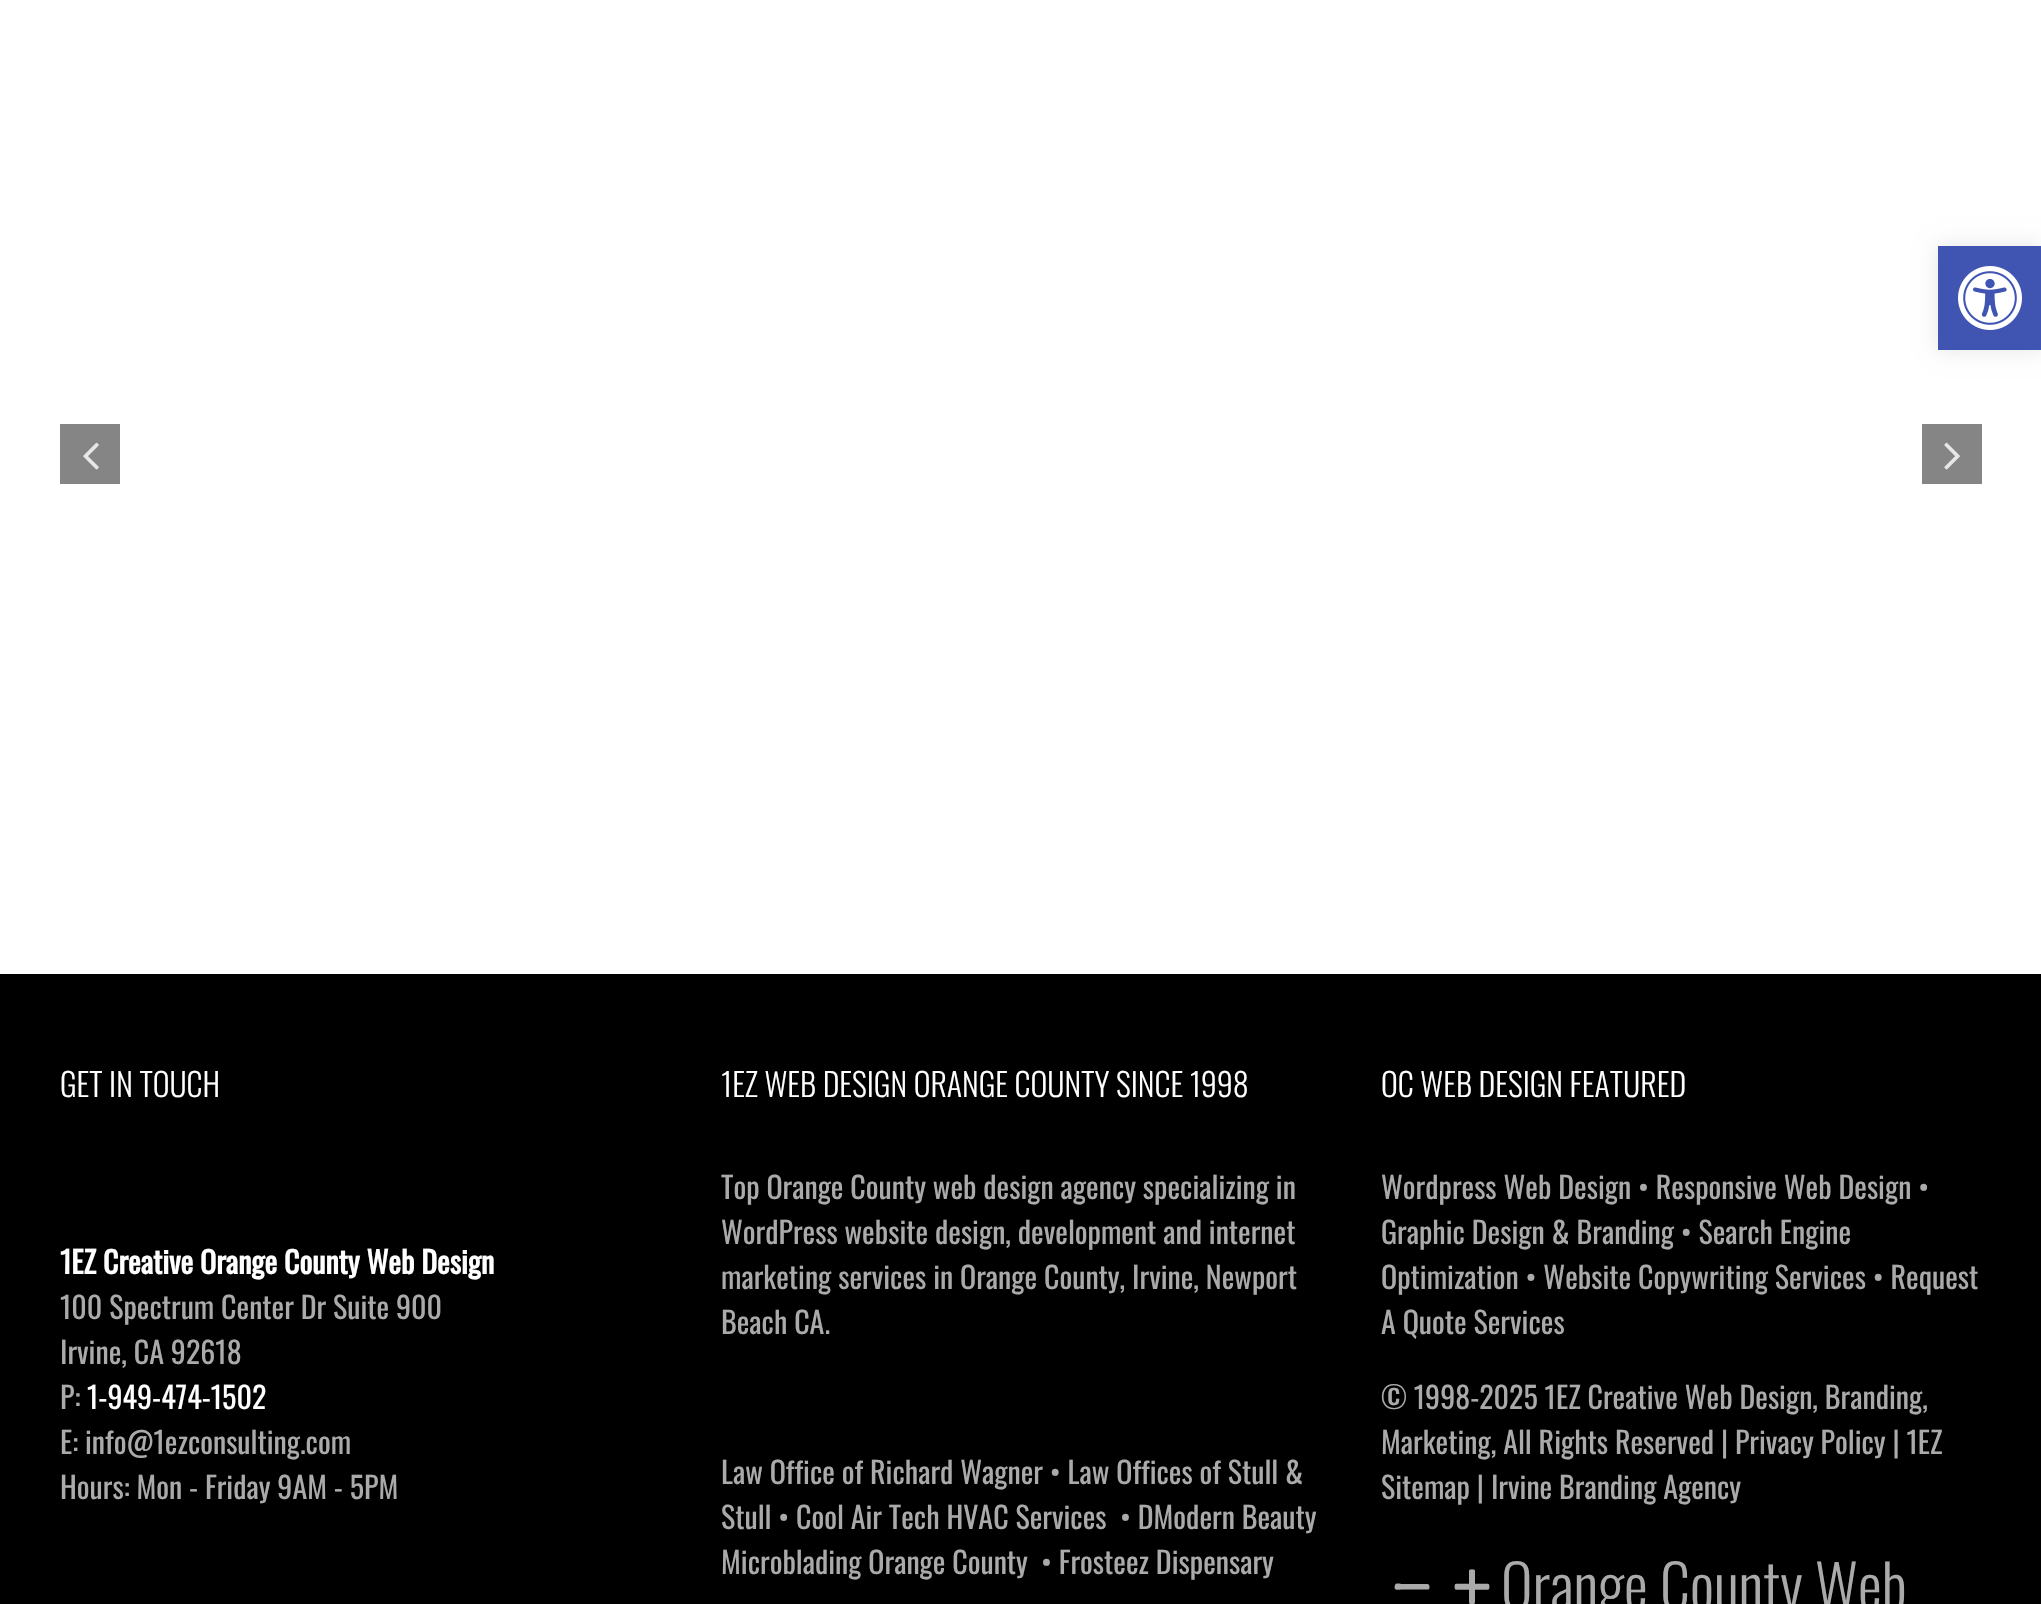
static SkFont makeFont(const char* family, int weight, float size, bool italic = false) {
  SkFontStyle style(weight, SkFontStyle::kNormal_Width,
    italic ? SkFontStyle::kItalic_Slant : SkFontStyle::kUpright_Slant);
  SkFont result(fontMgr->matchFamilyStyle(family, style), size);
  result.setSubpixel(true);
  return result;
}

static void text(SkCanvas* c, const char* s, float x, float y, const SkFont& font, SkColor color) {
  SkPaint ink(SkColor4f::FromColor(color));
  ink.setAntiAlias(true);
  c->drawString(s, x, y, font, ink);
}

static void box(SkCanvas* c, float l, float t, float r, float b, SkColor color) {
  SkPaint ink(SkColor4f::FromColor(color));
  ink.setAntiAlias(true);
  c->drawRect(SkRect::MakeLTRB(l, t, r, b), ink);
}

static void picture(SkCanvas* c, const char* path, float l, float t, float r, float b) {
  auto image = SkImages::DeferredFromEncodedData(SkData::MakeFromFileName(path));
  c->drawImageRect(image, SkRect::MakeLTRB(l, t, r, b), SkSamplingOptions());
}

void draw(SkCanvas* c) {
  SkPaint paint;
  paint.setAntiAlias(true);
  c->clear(0xffffffff);
  paint.setColor(0x1a000000);
  paint.setMaskFilter(SkMaskFilter::MakeBlur(kNormal_SkBlurStyle, 10));
  c->drawRect(SkRect::MakeLTRB(1938, 246, 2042, 350), paint);
  paint.setMaskFilter(nullptr);
  box(c, 1938, 246, 2041, 350, 0xff4054b2);
  picture(c, "img_01.png", 1958, 266, 2022, 330);
  box(c, 60, 424, 120, 484, 0xff858585);
  picture(c, "img_02.png", 83, 442, 99, 470);
  box(c, 1922, 424, 1982, 484, 0xff858585);
  picture(c, "img_03.png", 1944, 442, 1960, 470);
  box(c, 0, 974, 2041, 1604, 0xff000000);
  SkFont face1 = makeFont("Oswald", 300, 32);
  text(c, "GET IN TOUCH", 60, 1097, face1, 0xffffffff);
  SkFont face2 = makeFont("Oswald", 700, 30);
  text(c, "1EZ Creative Orange County Web Design", 60, 1274, face2, 0xffffffff);
  SkFont face3 = makeFont("Oswald", 400, 30);
  text(c, "100 Spectrum Center Dr Suite 900", 60, 1319, face3, 0xffaaaaaa);
  text(c, "Irvine, CA 92618", 60, 1364, face3, 0xffaaaaaa);
  text(c, "P:", 60, 1409, face3, 0xffaaaaaa);
  text(c, "1-949-474-1502", 87, 1409, face3, 0xffffffff);
  text(c, "E: info@1ezconsulting.com", 60, 1454, face3, 0xffaaaaaa);
  text(c, "Hours: Mon - Friday 9AM - 5PM", 60, 1499, face3, 0xffaaaaaa);
  text(c, "1EZ WEB DESIGN ORANGE COUNTY SINCE 1998", 721, 1097, face1, 0xffffffff);
  text(c, "Top Orange County web design agency specializing in", 721, 1199, face3, 0xffaaaaaa);
  text(c, "WordPress website design, development and internet", 721, 1244, face3, 0xffaaaaaa);
  text(c, "marketing services in Orange County, Irvine, Newport", 721, 1289, face3, 0xffaaaaaa);
  text(c, "Beach CA.", 721, 1334, face3, 0xffaaaaaa);
  text(c, "Law Office of Richard Wagner • Law Offices of Stull &", 721, 1484, face3, 0xffaaaaaa);
  text(c, "Stull • Cool Air Tech HVAC Services", 721, 1529, face3, 0xffaaaaaa);
  text(c, "• DModern Beauty", 1120, 1529, face3, 0xffaaaaaa);
  text(c, "Microblading Orange County", 721, 1574, face3, 0xffaaaaaa);
  text(c, "• Frosteez Dispensary", 1041, 1574, face3, 0xffaaaaaa);
  text(c, "OC WEB DESIGN FEATURED", 1381, 1097, face1, 0xffffffff);
  text(c, "Wordpress Web Design • Responsive Web Design •", 1381, 1199, face3, 0xffaaaaaa);
  text(c, "Graphic Design & Branding • Search Engine", 1381, 1244, face3, 0xffaaaaaa);
  text(c, "Optimization • Website Copywriting Services • Request", 1381, 1289, face3, 0xffaaaaaa);
  text(c, "A Quote Services", 1381, 1334, face3, 0xffaaaaaa);
  text(c, "© 1998-2025 1EZ Creative Web Design, Branding,", 1381, 1409, face3, 0xffaaaaaa);
  text(c, "Marketing, All Rights Reserved | Privacy Policy | 1EZ", 1381, 1454, face3, 0xffaaaaaa);
  text(c, "Sitemap | Irvine Branding Agency", 1381, 1499, face3, 0xffaaaaaa);
  picture(c, "img_04.png", 1454, 1569, 1490, 1604);
  SkFont face4 = makeFont("Oswald", 300, 60);
  text(c, "Orange County Web", 1501, 1610, face4, 0xffaaaaaa);
  paint.setColor(0xffaaaaaa);
  c->drawPath(SkPathBuilder().moveTo(1427.5f, 1584).lineTo(1401.5f, 1584).cubicTo(1401.5f, 1584, 1395.5f, 1582.5f, 1395, 1585).lineTo(1394.5f, 1587.5f).cubicTo(1395, 1591, 1398.5f, 1589.5f, 1401.5f, 1589.5f).lineTo(1428.5f, 1589.5f).cubicTo(1430, 1589, 1430, 1584, 1427.5f, 1584).close().detach(), paint);
}
